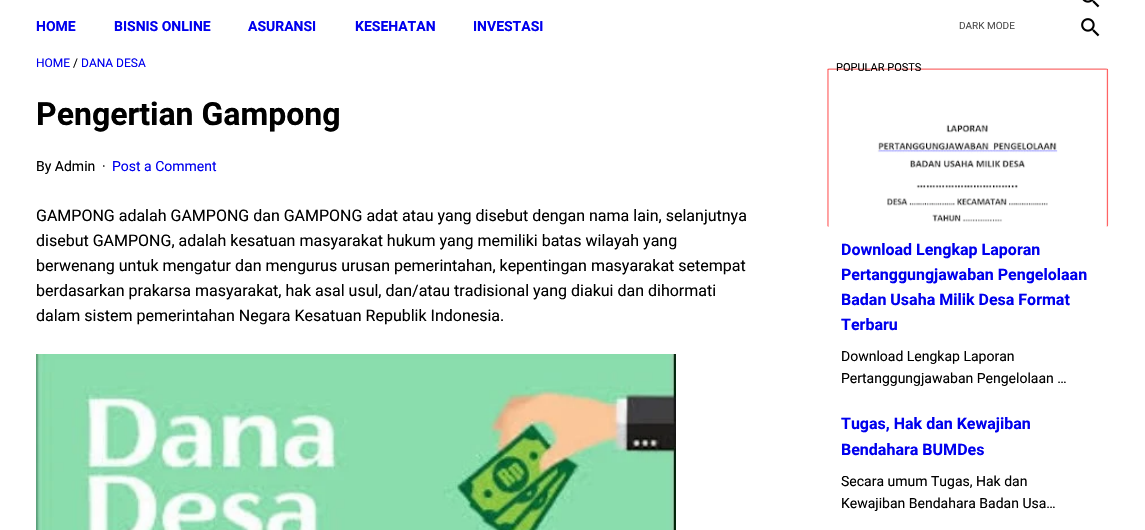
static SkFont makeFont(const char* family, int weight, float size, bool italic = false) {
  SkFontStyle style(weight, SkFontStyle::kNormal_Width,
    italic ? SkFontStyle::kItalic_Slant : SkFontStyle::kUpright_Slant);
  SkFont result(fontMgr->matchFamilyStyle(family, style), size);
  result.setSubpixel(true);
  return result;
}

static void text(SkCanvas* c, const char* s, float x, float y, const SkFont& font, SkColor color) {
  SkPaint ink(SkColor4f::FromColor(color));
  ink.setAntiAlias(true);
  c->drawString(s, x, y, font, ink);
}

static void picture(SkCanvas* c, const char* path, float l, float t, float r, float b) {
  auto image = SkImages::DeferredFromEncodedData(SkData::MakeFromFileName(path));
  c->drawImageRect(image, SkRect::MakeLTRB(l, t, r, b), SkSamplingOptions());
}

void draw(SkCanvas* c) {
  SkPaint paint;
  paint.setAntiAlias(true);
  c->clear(0xffffffff);
  picture(c, "img_01.png", 1082, 0, 1100, 8);
  SkFont face1 = makeFont("Roboto", 700, 14);
  text(c, "HOME", 36, 31, face1, 0xff0000ee);
  text(c, "BISNIS ONLINE", 114, 31, face1, 0xff0000ee);
  text(c, "ASURANSI", 248, 31, face1, 0xff0000ee);
  text(c, "KESEHATAN", 355, 31, face1, 0xff0000ee);
  text(c, "INVESTASI", 473, 31, face1, 0xff0000ee);
  SkFont face2 = makeFont("Roboto", 400, 10);
  text(c, "DARK MODE", 959, 29, face2, 0xff4d4d4d);
  picture(c, "img_02.png", 1081, 18, 1100, 37);
  SkFont face3 = makeFont("Roboto", 400, 12);
  text(c, "HOME", 36, 67, face3, 0xff0000ee);
  text(c, "/", 73, 67, face3, 0xff000000);
  text(c, "DANA DESA", 81, 67, face3, 0xff0000ee);
  SkFont face4 = makeFont("Roboto", 700, 32);
  text(c, "Pengertian Gampong", 36, 125, face4, 0xff000000);
  SkFont face5 = makeFont("Roboto", 400, 14);
  text(c, "By Admin", 36, 171, face5, 0xff000000);
  text(c, "·", 102, 171, face5, 0xff000000);
  text(c, "Post a Comment", 112, 171, face5, 0xff0000ee);
  SkFont face6 = makeFont("Roboto", 400, 16);
  text(c, "GAMPONG adalah GAMPONG dan GAMPONG adat atau yang disebut dengan nama lain, selanjutnya", 36, 221, face6, 0xff000000);
  text(c, "disebut GAMPONG, adalah kesatuan masyarakat hukum yang memiliki batas wilayah yang", 36, 246, face6, 0xff000000);
  text(c, "berwenang untuk mengatur dan mengurus urusan pemerintahan, kepentingan masyarakat setempat", 36, 271, face6, 0xff000000);
  text(c, "berdasarkan prakarsa masyarakat, hak asal usul, dan/atau tradisional yang diakui dan dihormati", 36, 296, face6, 0xff000000);
  text(c, "dalam sistem pemerintahan Negara Kesatuan Republik Indonesia.", 36, 321, face6, 0xff000000);
  picture(c, "img_03.png", 36, 354, 676, 530);
  picture(c, "img_04.png", 827, 68, 1109, 227);
  SkFont face7 = makeFont("Roboto", 400, 11);
  text(c, "POPULAR POSTS", 836, 71, face7, 0xff000000);
  SkFont face8 = makeFont("Roboto", 700, 16);
  text(c, "Download Lengkap Laporan", 841, 255, face8, 0xff0000ee);
  text(c, "Pertanggungjawaban Pengelolaan", 841, 280, face8, 0xff0000ee);
  text(c, "Badan Usaha Milik Desa Format", 841, 305, face8, 0xff0000ee);
  text(c, "Terbaru", 841, 330, face8, 0xff0000ee);
  text(c, "Download Lengkap Laporan", 841, 361, face5, 0xff000000);
  text(c, "Pertanggungjawaban Pengelolaan …", 841, 383, face5, 0xff000000);
  text(c, "Tugas, Hak dan Kewajiban", 841, 429, face8, 0xff0000ee);
  text(c, "Bendahara BUMDes", 841, 455, face8, 0xff0000ee);
  text(c, "Secara umum Tugas, Hak dan", 841, 486, face5, 0xff000000);
  text(c, "Kewajiban Bendahara Badan Usa…", 841, 508, face5, 0xff000000);
}
